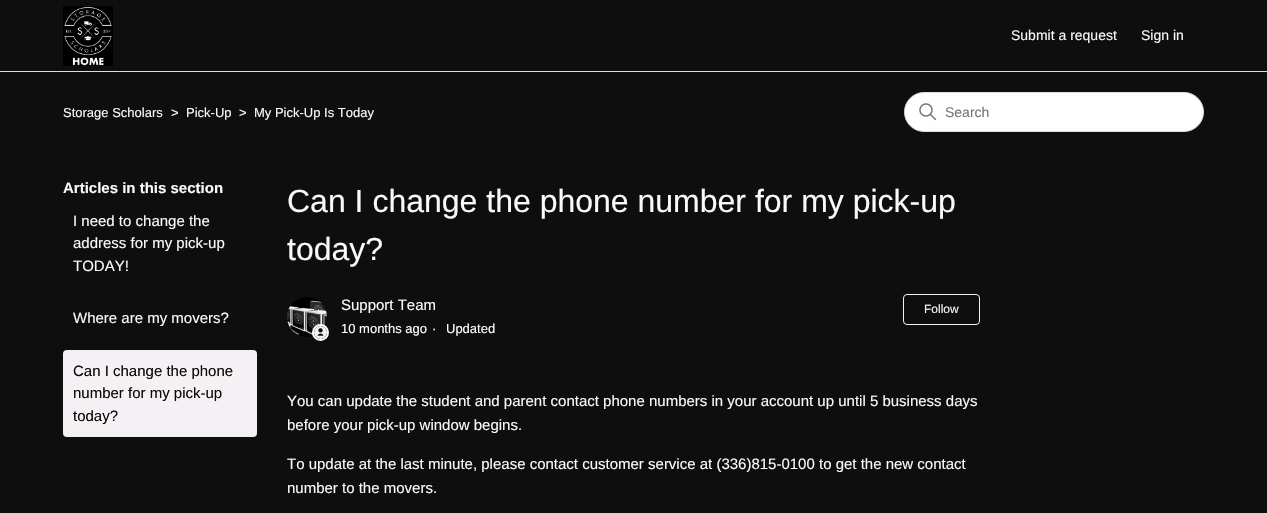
static SkFont makeFont(const char* family, int weight, float size, bool italic = false) {
  SkFontStyle style(weight, SkFontStyle::kNormal_Width,
    italic ? SkFontStyle::kItalic_Slant : SkFontStyle::kUpright_Slant);
  SkFont result(fontMgr->matchFamilyStyle(family, style), size);
  result.setSubpixel(true);
  return result;
}

static void text(SkCanvas* c, const char* s, float x, float y, const SkFont& font, SkColor color) {
  SkPaint ink(SkColor4f::FromColor(color));
  ink.setAntiAlias(true);
  c->drawString(s, x, y, font, ink);
}

static void box(SkCanvas* c, float l, float t, float r, float b, SkColor color) {
  SkPaint ink(SkColor4f::FromColor(color));
  ink.setAntiAlias(true);
  c->drawRect(SkRect::MakeLTRB(l, t, r, b), ink);
}

static void roundBox(SkCanvas* c, float l, float t, float r, float b, float radius, SkColor color) {
  SkPaint ink(SkColor4f::FromColor(color));
  ink.setAntiAlias(true);
  c->drawRoundRect(SkRect::MakeLTRB(l, t, r, b), radius, radius, ink);
}

static void picture(SkCanvas* c, const char* path, float l, float t, float r, float b) {
  auto image = SkImages::DeferredFromEncodedData(SkData::MakeFromFileName(path));
  c->drawImageRect(image, SkRect::MakeLTRB(l, t, r, b), SkSamplingOptions());
}

void draw(SkCanvas* c) {
  SkPaint paint;
  paint.setAntiAlias(true);
  c->clear(0xff0e0e0e);
  picture(c, "img_01.png", 63, 6, 113, 66);
  SkFont face1 = makeFont("Liberation Sans", 400, 14);
  text(c, "Submit a request", 1011, 40, face1, 0xfff7f9fa);
  text(c, "Sign in", 1141, 40, face1, 0xfff7f9fa);
  box(c, 0, 71, 1267, 72, 0xffdddddd);
  SkFont face2 = makeFont("Liberation Sans", 400, 13);
  text(c, "Storage Scholars", 63, 117, face2, 0xfff7f9fa);
  text(c, ">", 171, 117, face2, 0xffffffff);
  text(c, "Pick-Up", 186, 117, face2, 0xfff7f9fa);
  text(c, ">", 239, 117, face2, 0xffffffff);
  text(c, "My Pick-Up Is Today", 254, 117, face2, 0xfff7f9fa);
  paint.setColor(0xffffffff);
  c->drawRoundRect(SkRect::MakeLTRB(904.5f, 92.5f, 1203.5f, 131.5f), 19.5f, 19.5f, paint);
  paint.setStyle(SkPaint::kStroke_Style);
  paint.setStrokeWidth(1);
  paint.setColor(0xffdddddd);
  c->drawRoundRect(SkRect::MakeLTRB(904.5f, 92.5f, 1203.5f, 131.5f), 19.5f, 19.5f, paint);
  picture(c, "img_02.png", 919, 103, 937, 121);
  text(c, "Search", 945, 117, face1, 0xff757575);
  SkFont face3 = makeFont("Liberation Sans", 700, 15);
  text(c, "Articles in this section", 63, 193, face3, 0xfff7f9fa);
  SkFont face4 = makeFont("Liberation Sans", 400, 15);
  text(c, "I need to change the", 73, 226, face4, 0xfff7f9fa);
  text(c, "address for my pick-up", 73, 248, face4, 0xfff7f9fa);
  text(c, "TODAY!", 73, 271, face4, 0xfff7f9fa);
  text(c, "Where are my movers?", 73, 323, face4, 0xfff7f9fa);
  roundBox(c, 63, 350, 257, 437, 4, 0xfff5f0f4);
  text(c, "Can I change the phone", 73, 376, face4, 0xff0a0909);
  text(c, "number for my pick-up", 73, 398, face4, 0xff0a0909);
  text(c, "today?", 73, 421, face4, 0xff0a0909);
  SkFont face5 = makeFont("Liberation Sans", 400, 32);
  text(c, "Can I change the phone number for my pick-up", 287, 212, face5, 0xfff7f9fa);
  text(c, "today?", 287, 260, face5, 0xfff7f9fa);
  picture(c, "img_03.png", 287, 297, 327, 337);
  paint.setStyle(SkPaint::kFill_Style);
  paint.setColor(0xff0a0909);
  c->drawCircle(320.5f, 332.5f, 7.5f, paint);
  paint.setStyle(SkPaint::kStroke_Style);
  paint.setStrokeWidth(2);
  paint.setColor(0xffffffff);
  c->drawCircle(320.5f, 332.5f, 7.5f, paint);
  picture(c, "img_04.png", 314, 326, 327, 339);
  text(c, "Support Team", 341, 310, face4, 0xfff7f9fa);
  text(c, "10 months ago", 341, 333, face2, 0xffffffff);
  text(c, "·", 432, 333, face2, 0xffffffff);
  text(c, "Updated", 446, 333, face2, 0xffffffff);
  paint.setStrokeWidth(1);
  paint.setColor(0xfff5f0f4);
  c->drawRoundRect(SkRect::MakeLTRB(903.5f, 294.5f, 979.5f, 324.5f), 3.5f, 3.5f, paint);
  SkFont face6 = makeFont("Liberation Sans", 400, 12);
  text(c, "Follow", 924, 313, face6, 0xfff5f0f4);
  text(c, "You can update the student and parent contact phone numbers in your account up until 5 business days", 287, 406, face4, 0xfff7f9fa);
  text(c, "before your pick-up window begins.", 287, 430, face4, 0xfff7f9fa);
  text(c, "To update at the last minute, please contact customer service at (336)815-0100 to get the new contact", 287, 469, face4, 0xfff7f9fa);
  text(c, "number to the movers.", 287, 493, face4, 0xfff7f9fa);
}
